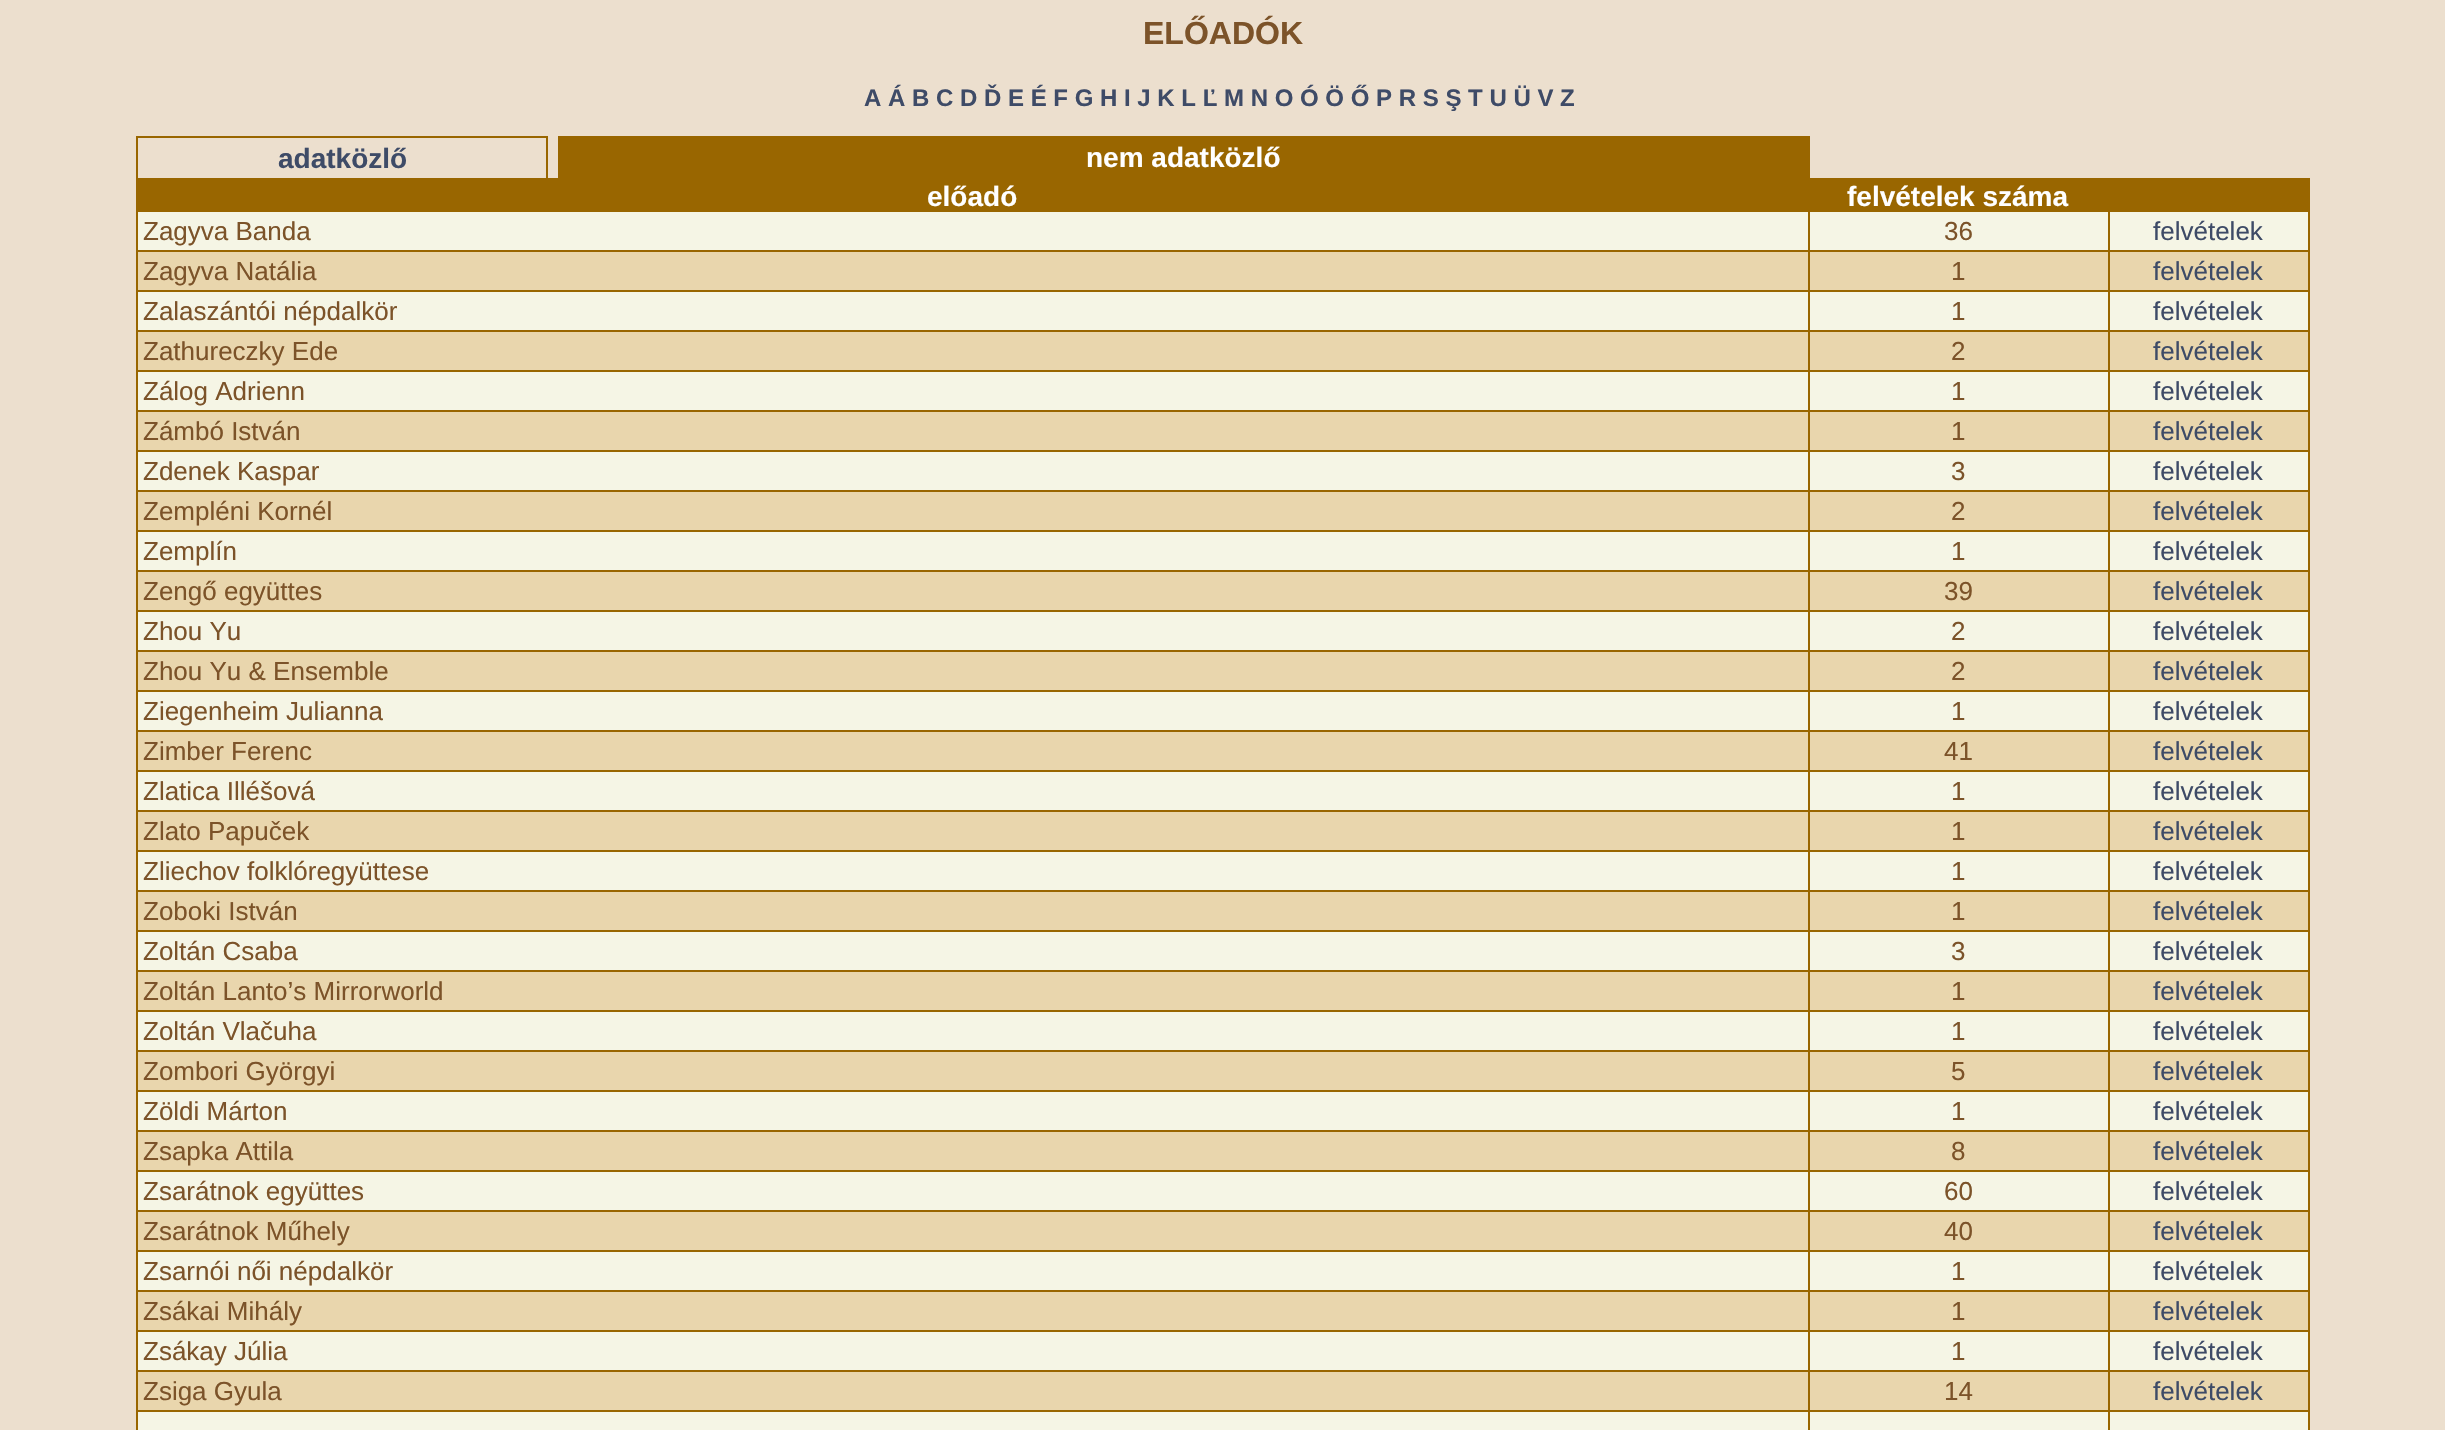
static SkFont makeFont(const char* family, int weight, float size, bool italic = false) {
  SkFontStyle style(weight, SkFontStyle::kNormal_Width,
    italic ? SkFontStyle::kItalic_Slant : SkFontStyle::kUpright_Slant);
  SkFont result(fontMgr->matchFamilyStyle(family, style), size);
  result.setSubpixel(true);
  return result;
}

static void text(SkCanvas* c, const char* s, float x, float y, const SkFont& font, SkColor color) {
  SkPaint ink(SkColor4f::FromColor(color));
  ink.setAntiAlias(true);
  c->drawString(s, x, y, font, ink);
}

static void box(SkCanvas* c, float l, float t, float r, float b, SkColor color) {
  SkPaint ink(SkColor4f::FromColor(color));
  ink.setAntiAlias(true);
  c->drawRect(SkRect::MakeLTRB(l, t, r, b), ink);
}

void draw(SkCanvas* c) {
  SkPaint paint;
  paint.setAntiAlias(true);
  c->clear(0xffecdfce);
  SkFont face1 = makeFont("Liberation Sans", 700, 32);
  text(c, "ELŐADÓK", 1143, 44, face1, 0xff7c5329);
  SkFont face2 = makeFont("Liberation Sans", 700, 24);
  text(c, "A Á B C D Ď E É F G H I J K L Ľ M N O Ó Ö Ő P R S Ş T U Ü V Z", 864, 106, face2, 0xff3e4b67);
  box(c, 136, 136, 548, 138, 0xff996600);
  box(c, 546, 136, 548, 178, 0xff996600);
  box(c, 136, 136, 138, 178, 0xff996600);
  SkFont face3 = makeFont("Liberation Sans", 700, 28);
  text(c, "adatközlő", 278, 168, face3, 0xff3e4b67);
  box(c, 558, 136, 1810, 178, 0xff996600);
  text(c, "nem adatközlő", 1086, 167, face3, 0xffffffff);
  box(c, 136, 178, 2310, 180, 0xff996600);
  box(c, 2308, 178, 2310, 1430, 0xff996600);
  box(c, 136, 180, 2308, 212, 0xff996600);
  text(c, "előadó", 927, 206, face3, 0xffffffff);
  text(c, "felvételek száma", 1847, 206, face3, 0xffffffff);
  box(c, 138, 212, 2308, 250, 0xfff5f5e5);
  box(c, 136, 250, 2308, 252, 0xff996600);
  box(c, 136, 212, 138, 252, 0xff996600);
  SkFont face4 = makeFont("Liberation Sans", 400, 26);
  text(c, "Zagyva Banda", 143, 240, face4, 0xff7c5329);
  box(c, 1808, 212, 1810, 252, 0xff996600);
  text(c, "36", 1944, 240, face4, 0xff7c5329);
  box(c, 2108, 212, 2110, 252, 0xff996600);
  text(c, "felvételek", 2153, 240, face4, 0xff3e4b67);
  box(c, 138, 252, 2308, 290, 0xffe9d6ad);
  box(c, 136, 290, 2308, 292, 0xff996600);
  box(c, 136, 252, 138, 292, 0xff996600);
  text(c, "Zagyva Natália", 143, 280, face4, 0xff7c5329);
  box(c, 1808, 252, 1810, 292, 0xff996600);
  text(c, "1", 1951, 280, face4, 0xff7c5329);
  box(c, 2108, 252, 2110, 292, 0xff996600);
  text(c, "felvételek", 2153, 280, face4, 0xff3e4b67);
  box(c, 138, 292, 2308, 330, 0xfff5f5e5);
  box(c, 136, 330, 2308, 332, 0xff996600);
  box(c, 136, 292, 138, 332, 0xff996600);
  text(c, "Zalaszántói népdalkör", 143, 320, face4, 0xff7c5329);
  box(c, 1808, 292, 1810, 332, 0xff996600);
  text(c, "1", 1951, 320, face4, 0xff7c5329);
  box(c, 2108, 292, 2110, 332, 0xff996600);
  text(c, "felvételek", 2153, 320, face4, 0xff3e4b67);
  box(c, 138, 332, 2308, 370, 0xffe9d6ad);
  box(c, 136, 370, 2308, 372, 0xff996600);
  box(c, 136, 332, 138, 372, 0xff996600);
  text(c, "Zathureczky Ede", 143, 360, face4, 0xff7c5329);
  box(c, 1808, 332, 1810, 372, 0xff996600);
  text(c, "2", 1951, 360, face4, 0xff7c5329);
  box(c, 2108, 332, 2110, 372, 0xff996600);
  text(c, "felvételek", 2153, 360, face4, 0xff3e4b67);
  box(c, 138, 372, 2308, 410, 0xfff5f5e5);
  box(c, 136, 410, 2308, 412, 0xff996600);
  box(c, 136, 372, 138, 412, 0xff996600);
  text(c, "Zálog Adrienn", 143, 400, face4, 0xff7c5329);
  box(c, 1808, 372, 1810, 412, 0xff996600);
  text(c, "1", 1951, 400, face4, 0xff7c5329);
  box(c, 2108, 372, 2110, 412, 0xff996600);
  text(c, "felvételek", 2153, 400, face4, 0xff3e4b67);
  box(c, 138, 412, 2308, 450, 0xffe9d6ad);
  box(c, 136, 450, 2308, 452, 0xff996600);
  box(c, 136, 412, 138, 452, 0xff996600);
  text(c, "Zámbó István", 143, 440, face4, 0xff7c5329);
  box(c, 1808, 412, 1810, 452, 0xff996600);
  text(c, "1", 1951, 440, face4, 0xff7c5329);
  box(c, 2108, 412, 2110, 452, 0xff996600);
  text(c, "felvételek", 2153, 440, face4, 0xff3e4b67);
  box(c, 138, 452, 2308, 490, 0xfff5f5e5);
  box(c, 136, 490, 2308, 492, 0xff996600);
  box(c, 136, 452, 138, 492, 0xff996600);
  text(c, "Zdenek Kaspar", 143, 480, face4, 0xff7c5329);
  box(c, 1808, 452, 1810, 492, 0xff996600);
  text(c, "3", 1951, 480, face4, 0xff7c5329);
  box(c, 2108, 452, 2110, 492, 0xff996600);
  text(c, "felvételek", 2153, 480, face4, 0xff3e4b67);
  box(c, 138, 492, 2308, 530, 0xffe9d6ad);
  box(c, 136, 530, 2308, 532, 0xff996600);
  box(c, 136, 492, 138, 532, 0xff996600);
  text(c, "Zempléni Kornél", 143, 520, face4, 0xff7c5329);
  box(c, 1808, 492, 1810, 532, 0xff996600);
  text(c, "2", 1951, 520, face4, 0xff7c5329);
  box(c, 2108, 492, 2110, 532, 0xff996600);
  text(c, "felvételek", 2153, 520, face4, 0xff3e4b67);
  box(c, 138, 532, 2308, 570, 0xfff5f5e5);
  box(c, 136, 570, 2308, 572, 0xff996600);
  box(c, 136, 532, 138, 572, 0xff996600);
  text(c, "Zemplín", 143, 560, face4, 0xff7c5329);
  box(c, 1808, 532, 1810, 572, 0xff996600);
  text(c, "1", 1951, 560, face4, 0xff7c5329);
  box(c, 2108, 532, 2110, 572, 0xff996600);
  text(c, "felvételek", 2153, 560, face4, 0xff3e4b67);
  box(c, 138, 572, 2308, 610, 0xffe9d6ad);
  box(c, 136, 610, 2308, 612, 0xff996600);
  box(c, 136, 572, 138, 612, 0xff996600);
  text(c, "Zengő együttes", 143, 600, face4, 0xff7c5329);
  box(c, 1808, 572, 1810, 612, 0xff996600);
  text(c, "39", 1944, 600, face4, 0xff7c5329);
  box(c, 2108, 572, 2110, 612, 0xff996600);
  text(c, "felvételek", 2153, 600, face4, 0xff3e4b67);
  box(c, 138, 612, 2308, 650, 0xfff5f5e5);
  box(c, 136, 650, 2308, 652, 0xff996600);
  box(c, 136, 612, 138, 652, 0xff996600);
  text(c, "Zhou Yu", 143, 640, face4, 0xff7c5329);
  box(c, 1808, 612, 1810, 652, 0xff996600);
  text(c, "2", 1951, 640, face4, 0xff7c5329);
  box(c, 2108, 612, 2110, 652, 0xff996600);
  text(c, "felvételek", 2153, 640, face4, 0xff3e4b67);
  box(c, 138, 652, 2308, 690, 0xffe9d6ad);
  box(c, 136, 690, 2308, 692, 0xff996600);
  box(c, 136, 652, 138, 692, 0xff996600);
  text(c, "Zhou Yu & Ensemble", 143, 680, face4, 0xff7c5329);
  box(c, 1808, 652, 1810, 692, 0xff996600);
  text(c, "2", 1951, 680, face4, 0xff7c5329);
  box(c, 2108, 652, 2110, 692, 0xff996600);
  text(c, "felvételek", 2153, 680, face4, 0xff3e4b67);
  box(c, 138, 692, 2308, 730, 0xfff5f5e5);
  box(c, 136, 730, 2308, 732, 0xff996600);
  box(c, 136, 692, 138, 732, 0xff996600);
  text(c, "Ziegenheim Julianna", 143, 720, face4, 0xff7c5329);
  box(c, 1808, 692, 1810, 732, 0xff996600);
  text(c, "1", 1951, 720, face4, 0xff7c5329);
  box(c, 2108, 692, 2110, 732, 0xff996600);
  text(c, "felvételek", 2153, 720, face4, 0xff3e4b67);
  box(c, 138, 732, 2308, 770, 0xffe9d6ad);
  box(c, 136, 770, 2308, 772, 0xff996600);
  box(c, 136, 732, 138, 772, 0xff996600);
  text(c, "Zimber Ferenc", 143, 760, face4, 0xff7c5329);
  box(c, 1808, 732, 1810, 772, 0xff996600);
  text(c, "41", 1944, 760, face4, 0xff7c5329);
  box(c, 2108, 732, 2110, 772, 0xff996600);
  text(c, "felvételek", 2153, 760, face4, 0xff3e4b67);
  box(c, 138, 772, 2308, 810, 0xfff5f5e5);
  box(c, 136, 810, 2308, 812, 0xff996600);
  box(c, 136, 772, 138, 812, 0xff996600);
  text(c, "Zlatica Illéšová", 143, 800, face4, 0xff7c5329);
  box(c, 1808, 772, 1810, 812, 0xff996600);
  text(c, "1", 1951, 800, face4, 0xff7c5329);
  box(c, 2108, 772, 2110, 812, 0xff996600);
  text(c, "felvételek", 2153, 800, face4, 0xff3e4b67);
  box(c, 138, 812, 2308, 850, 0xffe9d6ad);
  box(c, 136, 850, 2308, 852, 0xff996600);
  box(c, 136, 812, 138, 852, 0xff996600);
  text(c, "Zlato Papuček", 143, 840, face4, 0xff7c5329);
  box(c, 1808, 812, 1810, 852, 0xff996600);
  text(c, "1", 1951, 840, face4, 0xff7c5329);
  box(c, 2108, 812, 2110, 852, 0xff996600);
  text(c, "felvételek", 2153, 840, face4, 0xff3e4b67);
  box(c, 138, 852, 2308, 890, 0xfff5f5e5);
  box(c, 136, 890, 2308, 892, 0xff996600);
  box(c, 136, 852, 138, 892, 0xff996600);
  text(c, "Zliechov folklóregyüttese", 143, 880, face4, 0xff7c5329);
  box(c, 1808, 852, 1810, 892, 0xff996600);
  text(c, "1", 1951, 880, face4, 0xff7c5329);
  box(c, 2108, 852, 2110, 892, 0xff996600);
  text(c, "felvételek", 2153, 880, face4, 0xff3e4b67);
  box(c, 138, 892, 2308, 930, 0xffe9d6ad);
  box(c, 136, 930, 2308, 932, 0xff996600);
  box(c, 136, 892, 138, 932, 0xff996600);
  text(c, "Zoboki István", 143, 920, face4, 0xff7c5329);
  box(c, 1808, 892, 1810, 932, 0xff996600);
  text(c, "1", 1951, 920, face4, 0xff7c5329);
  box(c, 2108, 892, 2110, 932, 0xff996600);
  text(c, "felvételek", 2153, 920, face4, 0xff3e4b67);
  box(c, 138, 932, 2308, 970, 0xfff5f5e5);
  box(c, 136, 970, 2308, 972, 0xff996600);
  box(c, 136, 932, 138, 972, 0xff996600);
  text(c, "Zoltán Csaba", 143, 960, face4, 0xff7c5329);
  box(c, 1808, 932, 1810, 972, 0xff996600);
  text(c, "3", 1951, 960, face4, 0xff7c5329);
  box(c, 2108, 932, 2110, 972, 0xff996600);
  text(c, "felvételek", 2153, 960, face4, 0xff3e4b67);
  box(c, 138, 972, 2308, 1010, 0xffe9d6ad);
  box(c, 136, 1010, 2308, 1012, 0xff996600);
  box(c, 136, 972, 138, 1012, 0xff996600);
  text(c, "Zoltán Lanto’s Mirrorworld", 143, 1000, face4, 0xff7c5329);
  box(c, 1808, 972, 1810, 1012, 0xff996600);
  text(c, "1", 1951, 1000, face4, 0xff7c5329);
  box(c, 2108, 972, 2110, 1012, 0xff996600);
  text(c, "felvételek", 2153, 1000, face4, 0xff3e4b67);
  box(c, 138, 1012, 2308, 1050, 0xfff5f5e5);
  box(c, 136, 1050, 2308, 1052, 0xff996600);
  box(c, 136, 1012, 138, 1052, 0xff996600);
  text(c, "Zoltán Vlačuha", 143, 1040, face4, 0xff7c5329);
  box(c, 1808, 1012, 1810, 1052, 0xff996600);
  text(c, "1", 1951, 1040, face4, 0xff7c5329);
  box(c, 2108, 1012, 2110, 1052, 0xff996600);
  text(c, "felvételek", 2153, 1040, face4, 0xff3e4b67);
  box(c, 138, 1052, 2308, 1090, 0xffe9d6ad);
  box(c, 136, 1090, 2308, 1092, 0xff996600);
  box(c, 136, 1052, 138, 1092, 0xff996600);
  text(c, "Zombori Györgyi", 143, 1080, face4, 0xff7c5329);
  box(c, 1808, 1052, 1810, 1092, 0xff996600);
  text(c, "5", 1951, 1080, face4, 0xff7c5329);
  box(c, 2108, 1052, 2110, 1092, 0xff996600);
  text(c, "felvételek", 2153, 1080, face4, 0xff3e4b67);
  box(c, 138, 1092, 2308, 1130, 0xfff5f5e5);
  box(c, 136, 1130, 2308, 1132, 0xff996600);
  box(c, 136, 1092, 138, 1132, 0xff996600);
  text(c, "Zöldi Márton", 143, 1120, face4, 0xff7c5329);
  box(c, 1808, 1092, 1810, 1132, 0xff996600);
  text(c, "1", 1951, 1120, face4, 0xff7c5329);
  box(c, 2108, 1092, 2110, 1132, 0xff996600);
  text(c, "felvételek", 2153, 1120, face4, 0xff3e4b67);
  box(c, 138, 1132, 2308, 1170, 0xffe9d6ad);
  box(c, 136, 1170, 2308, 1172, 0xff996600);
  box(c, 136, 1132, 138, 1172, 0xff996600);
  text(c, "Zsapka Attila", 143, 1160, face4, 0xff7c5329);
  box(c, 1808, 1132, 1810, 1172, 0xff996600);
  text(c, "8", 1951, 1160, face4, 0xff7c5329);
  box(c, 2108, 1132, 2110, 1172, 0xff996600);
  text(c, "felvételek", 2153, 1160, face4, 0xff3e4b67);
  box(c, 138, 1172, 2308, 1210, 0xfff5f5e5);
  box(c, 136, 1210, 2308, 1212, 0xff996600);
  box(c, 136, 1172, 138, 1212, 0xff996600);
  text(c, "Zsarátnok együttes", 143, 1200, face4, 0xff7c5329);
  box(c, 1808, 1172, 1810, 1212, 0xff996600);
  text(c, "60", 1944, 1200, face4, 0xff7c5329);
  box(c, 2108, 1172, 2110, 1212, 0xff996600);
  text(c, "felvételek", 2153, 1200, face4, 0xff3e4b67);
  box(c, 138, 1212, 2308, 1250, 0xffe9d6ad);
  box(c, 136, 1250, 2308, 1252, 0xff996600);
  box(c, 136, 1212, 138, 1252, 0xff996600);
  text(c, "Zsarátnok Műhely", 143, 1240, face4, 0xff7c5329);
  box(c, 1808, 1212, 1810, 1252, 0xff996600);
  text(c, "40", 1944, 1240, face4, 0xff7c5329);
  box(c, 2108, 1212, 2110, 1252, 0xff996600);
  text(c, "felvételek", 2153, 1240, face4, 0xff3e4b67);
  box(c, 138, 1252, 2308, 1290, 0xfff5f5e5);
  box(c, 136, 1290, 2308, 1292, 0xff996600);
  box(c, 136, 1252, 138, 1292, 0xff996600);
  text(c, "Zsarnói női népdalkör", 143, 1280, face4, 0xff7c5329);
  box(c, 1808, 1252, 1810, 1292, 0xff996600);
  text(c, "1", 1951, 1280, face4, 0xff7c5329);
  box(c, 2108, 1252, 2110, 1292, 0xff996600);
  text(c, "felvételek", 2153, 1280, face4, 0xff3e4b67);
  box(c, 138, 1292, 2308, 1330, 0xffe9d6ad);
  box(c, 136, 1330, 2308, 1332, 0xff996600);
  box(c, 136, 1292, 138, 1332, 0xff996600);
  text(c, "Zsákai Mihály", 143, 1320, face4, 0xff7c5329);
  box(c, 1808, 1292, 1810, 1332, 0xff996600);
  text(c, "1", 1951, 1320, face4, 0xff7c5329);
  box(c, 2108, 1292, 2110, 1332, 0xff996600);
  text(c, "felvételek", 2153, 1320, face4, 0xff3e4b67);
  box(c, 138, 1332, 2308, 1370, 0xfff5f5e5);
  box(c, 136, 1370, 2308, 1372, 0xff996600);
  box(c, 136, 1332, 138, 1372, 0xff996600);
  text(c, "Zsákay Júlia", 143, 1360, face4, 0xff7c5329);
  box(c, 1808, 1332, 1810, 1372, 0xff996600);
  text(c, "1", 1951, 1360, face4, 0xff7c5329);
  box(c, 2108, 1332, 2110, 1372, 0xff996600);
  text(c, "felvételek", 2153, 1360, face4, 0xff3e4b67);
  box(c, 138, 1372, 2308, 1410, 0xffe9d6ad);
  box(c, 136, 1410, 2308, 1412, 0xff996600);
  box(c, 136, 1372, 138, 1430, 0xff996600);
  text(c, "Zsiga Gyula", 143, 1400, face4, 0xff7c5329);
  box(c, 1808, 1372, 1810, 1412, 0xff996600);
  text(c, "14", 1944, 1400, face4, 0xff7c5329);
  box(c, 2108, 1372, 2110, 1412, 0xff996600);
  text(c, "felvételek", 2153, 1400, face4, 0xff3e4b67);
  box(c, 138, 1412, 2308, 1430, 0xfff5f5e5);
  box(c, 1808, 1412, 1810, 1430, 0xff996600);
  box(c, 2108, 1412, 2110, 1430, 0xff996600);
}
